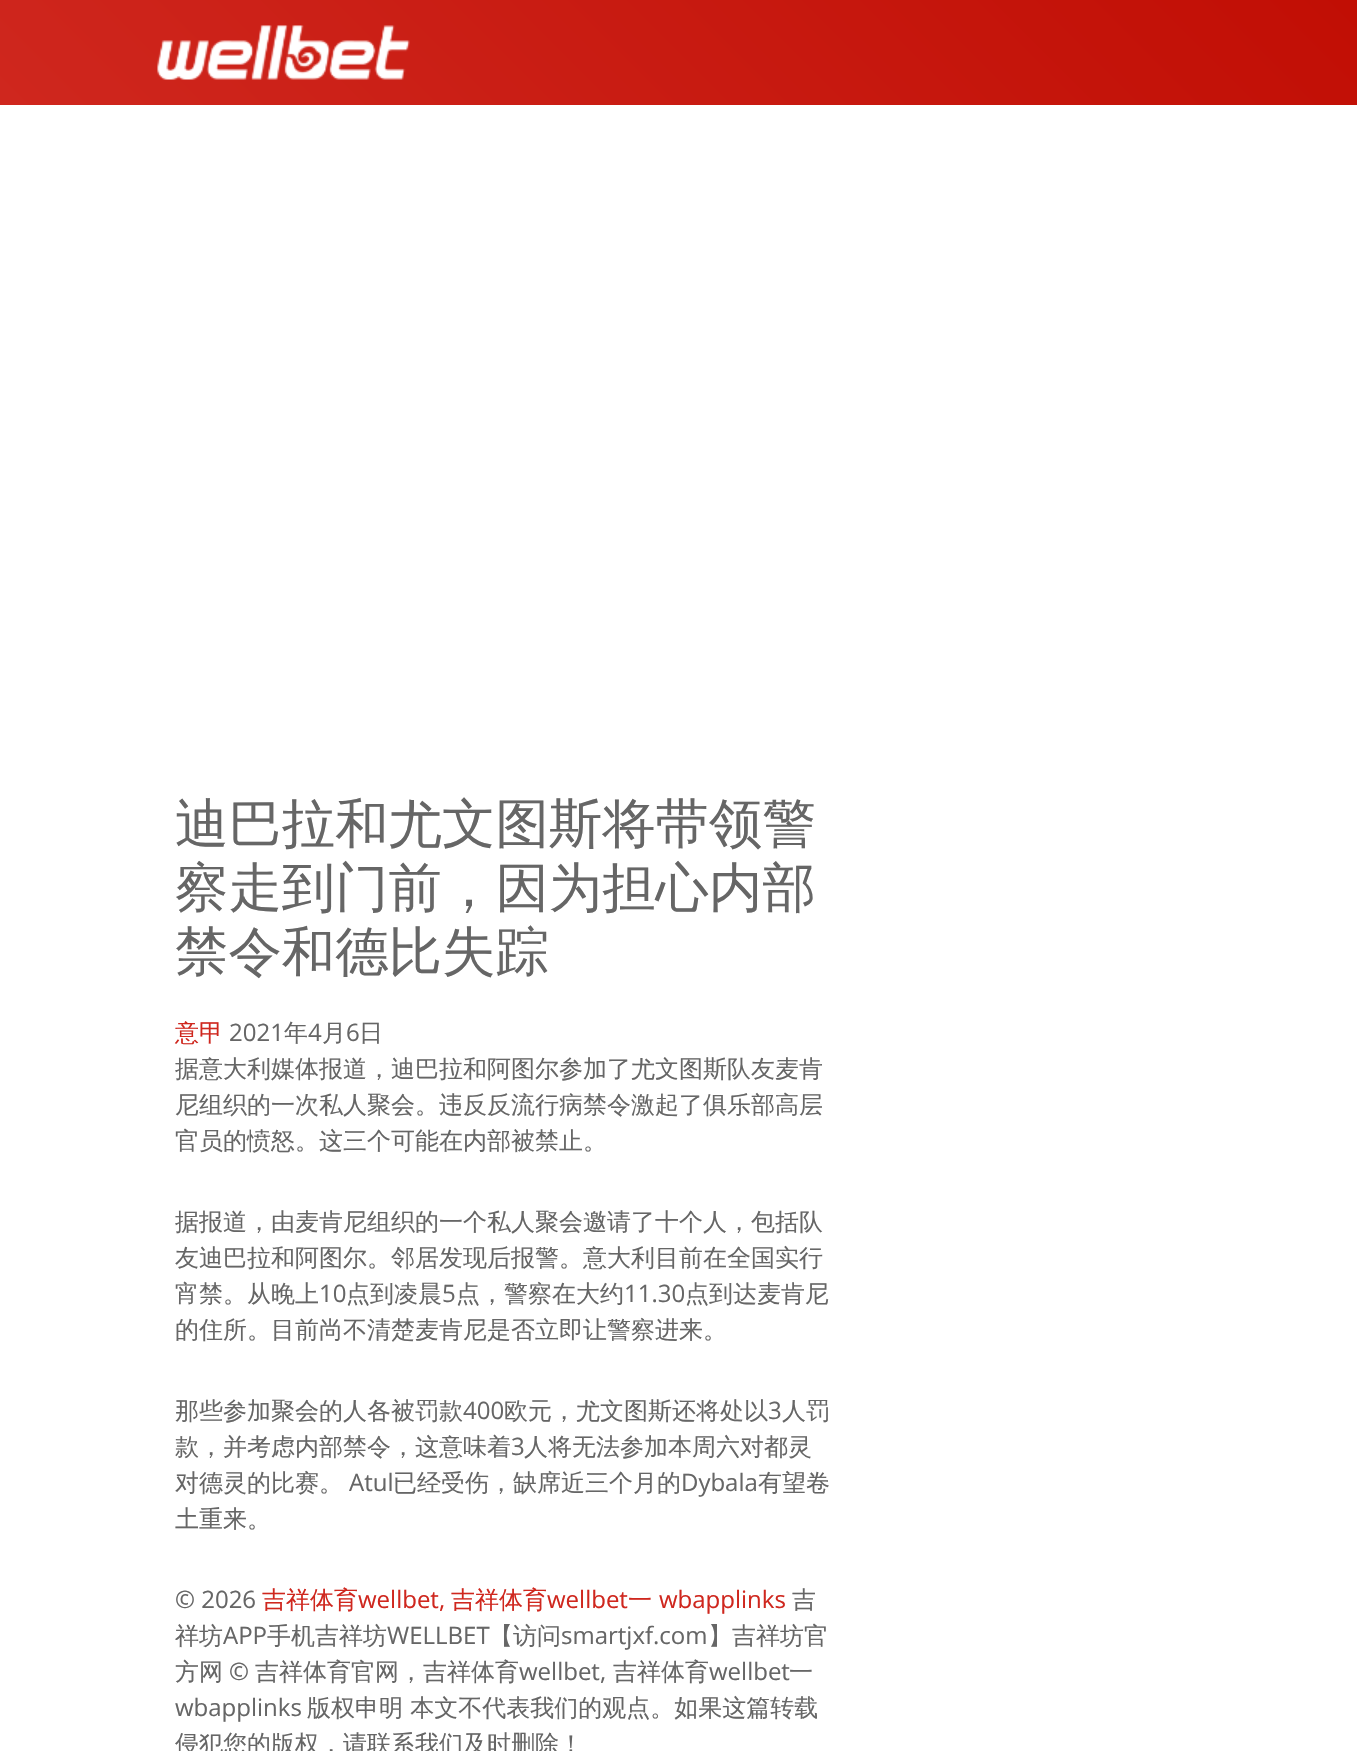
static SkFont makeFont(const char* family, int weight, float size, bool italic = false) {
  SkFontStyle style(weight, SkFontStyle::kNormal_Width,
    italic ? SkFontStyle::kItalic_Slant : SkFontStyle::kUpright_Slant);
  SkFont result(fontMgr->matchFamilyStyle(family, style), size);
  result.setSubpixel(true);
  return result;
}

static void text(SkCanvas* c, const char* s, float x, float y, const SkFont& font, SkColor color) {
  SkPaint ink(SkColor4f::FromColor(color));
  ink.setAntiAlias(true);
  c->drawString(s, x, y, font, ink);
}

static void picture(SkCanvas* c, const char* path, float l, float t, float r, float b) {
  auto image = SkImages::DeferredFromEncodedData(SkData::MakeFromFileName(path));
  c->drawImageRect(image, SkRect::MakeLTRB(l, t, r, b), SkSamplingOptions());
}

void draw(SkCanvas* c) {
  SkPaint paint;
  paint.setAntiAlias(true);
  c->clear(0xffffffff);
  {
    const SkColor colors[] = {0xffcf271e, 0xffc10e04};
    const float stops[] = {0, 1};
    const SkPoint ends[] = {{313, 418}, {1044, -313}};
    paint.setShader(SkGradientShader::MakeLinear(ends, colors, stops, 2, SkTileMode::kClamp));
    paint.setAlpha(255);
  }
  c->drawRect(SkRect::MakeLTRB(0, 0, 1357, 105), paint);
  picture(c, "img_01.png", 157, 25, 410, 80);
  SkFont face1 = makeFont("WenQuanYi Zen Hei", 500, 53.4f);
  text(c, "迪巴拉和尤文图斯将带领警", 175, 842, face1, 0xff666666);
  text(c, "察走到门前，因为担心内部", 175, 906, face1, 0xff666666);
  text(c, "禁令和德比失踪", 175, 970, face1, 0xff666666);
  SkFont face2 = makeFont("WenQuanYi Zen Hei", 500, 24);
  text(c, "意甲", 175, 1041, face2, 0xffcf271e);
  SkFont face3 = makeFont("Open Sans", 400, 24);
  text(c, "2021", 229, 1041, face3, 0xff666666);
  text(c, "年", 284, 1041, face2, 0xff666666);
  text(c, "4", 308, 1041, face3, 0xff666666);
  text(c, "月", 322, 1041, face2, 0xff666666);
  text(c, "6", 346, 1041, face3, 0xff666666);
  text(c, "日", 359, 1041, face2, 0xff666666);
  text(c, "据意大利媒体报道，迪巴拉和阿图尔参加了尤文图斯队友麦肯", 175, 1077, face2, 0xff666666);
  text(c, "尼组织的一次私人聚会。违反反流行病禁令激起了俱乐部高层", 175, 1113, face2, 0xff666666);
  text(c, "官员的愤怒。这三个可能在内部被禁止。", 175, 1149, face2, 0xff666666);
  text(c, "据报道，由麦肯尼组织的一个私人聚会邀请了十个人，包括队", 175, 1230, face2, 0xff666666);
  text(c, "友迪巴拉和阿图尔。邻居发现后报警。意大利目前在全国实行", 175, 1266, face2, 0xff666666);
  text(c, "宵禁。从晚上", 175, 1302, face2, 0xff666666);
  text(c, "10", 319, 1302, face3, 0xff666666);
  text(c, "点到凌晨", 346, 1302, face2, 0xff666666);
  text(c, "5", 442, 1302, face3, 0xff666666);
  text(c, "点，警察在大约", 456, 1302, face2, 0xff666666);
  text(c, "11.30", 624, 1302, face3, 0xff666666);
  text(c, "点到达麦肯尼", 685, 1302, face2, 0xff666666);
  text(c, "的住所。目前尚不清楚麦肯尼是否立即让警察进来。", 175, 1338, face2, 0xff666666);
  text(c, "那些参加聚会的人各被罚款", 175, 1419, face2, 0xff666666);
  text(c, "400", 463, 1419, face3, 0xff666666);
  text(c, "欧元，尤文图斯还将处以", 504, 1419, face2, 0xff666666);
  text(c, "3", 768, 1419, face3, 0xff666666);
  text(c, "人罚", 782, 1419, face2, 0xff666666);
  text(c, "款，并考虑内部禁令，这意味着", 175, 1455, face2, 0xff666666);
  text(c, "3", 511, 1455, face3, 0xff666666);
  text(c, "人将无法参加本周六对都灵", 524, 1455, face2, 0xff666666);
  text(c, "对德灵的比赛。", 175, 1491, face2, 0xff666666);
  text(c, "Atul", 349, 1491, face3, 0xff666666);
  text(c, "已经受伤，缺席近三个月的", 393, 1491, face2, 0xff666666);
  text(c, "Dybala", 681, 1491, face3, 0xff666666);
  text(c, "有望卷", 758, 1491, face2, 0xff666666);
  text(c, "土重来。", 175, 1527, face2, 0xff666666);
  text(c, "© 2026", 175, 1608, face3, 0xff666666);
  text(c, "吉祥体育", 262, 1608, face2, 0xffcf271e);
  text(c, "wellbet,", 358, 1608, face3, 0xffcf271e);
  text(c, "吉祥体育", 451, 1608, face2, 0xffcf271e);
  text(c, "wellbet", 547, 1608, face3, 0xffcf271e);
  text(c, "一", 628, 1608, face2, 0xffcf271e);
  text(c, "wbapplinks", 659, 1608, face3, 0xffcf271e);
  text(c, "吉", 792, 1608, face2, 0xff666666);
  text(c, "祥坊", 175, 1644, face2, 0xff666666);
  text(c, "APP", 223, 1644, face3, 0xff666666);
  text(c, "手机吉祥坊", 267, 1644, face2, 0xff666666);
  text(c, "WELLBET", 387, 1644, face3, 0xff666666);
  text(c, "【访问", 489, 1644, face2, 0xff666666);
  text(c, "smartjxf.com", 561, 1644, face3, 0xff666666);
  text(c, "】吉祥坊官", 708, 1644, face2, 0xff666666);
  text(c, "方网", 175, 1680, face2, 0xff666666);
  text(c, "©", 229, 1680, face3, 0xff666666);
  text(c, "吉祥体育官网，吉祥体育", 255, 1680, face2, 0xff666666);
  text(c, "wellbet,", 519, 1680, face3, 0xff666666);
  text(c, "吉祥体育", 613, 1680, face2, 0xff666666);
  text(c, "wellbet", 709, 1680, face3, 0xff666666);
  text(c, "一", 789, 1680, face2, 0xff666666);
  text(c, "wbapplinks", 175, 1716, face3, 0xff666666);
  text(c, "版权申明 本文不代表我们的观点。如果这篇转载", 307, 1716, face2, 0xff666666);
  text(c, "侵犯您的版权，请联系我们及时删除！", 175, 1752, face2, 0xff666666);
}
